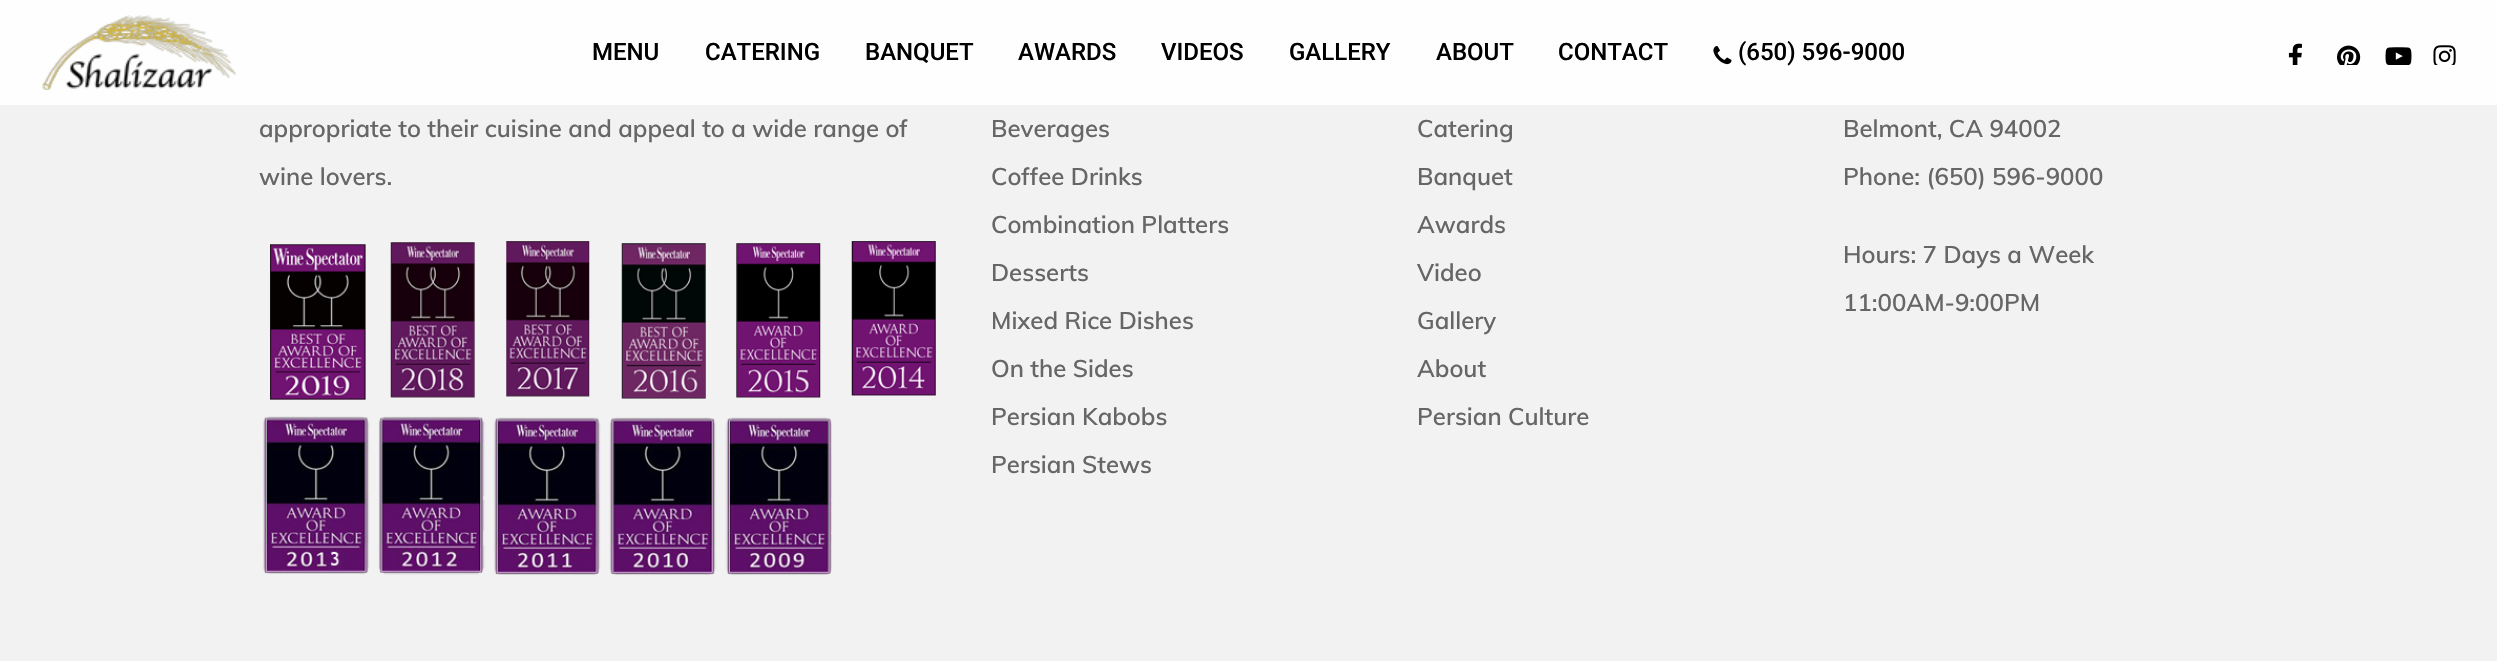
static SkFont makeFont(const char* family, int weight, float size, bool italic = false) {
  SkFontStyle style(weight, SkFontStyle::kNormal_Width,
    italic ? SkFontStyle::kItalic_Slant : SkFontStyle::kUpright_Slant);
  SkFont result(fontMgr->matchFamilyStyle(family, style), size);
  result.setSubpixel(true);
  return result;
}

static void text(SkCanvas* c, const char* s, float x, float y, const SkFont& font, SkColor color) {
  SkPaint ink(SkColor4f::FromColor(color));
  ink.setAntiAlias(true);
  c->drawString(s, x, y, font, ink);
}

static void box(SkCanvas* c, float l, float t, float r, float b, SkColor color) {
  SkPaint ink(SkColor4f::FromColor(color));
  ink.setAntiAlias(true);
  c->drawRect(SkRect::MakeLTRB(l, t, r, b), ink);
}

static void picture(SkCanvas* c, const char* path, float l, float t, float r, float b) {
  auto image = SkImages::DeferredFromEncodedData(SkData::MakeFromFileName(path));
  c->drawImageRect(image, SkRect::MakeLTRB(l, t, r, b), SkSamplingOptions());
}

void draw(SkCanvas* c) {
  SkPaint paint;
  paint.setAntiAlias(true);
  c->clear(0xfff2f2f2);
  box(c, 0, 0, 2497, 105, 0xfffefefe);
  picture(c, "img_01.png", 42, 15, 236, 90);
  SkFont face1 = makeFont("Roboto", 500, 24);
  text(c, "MENU", 592, 60, face1, 0xff000000);
  text(c, "CATERING", 705, 60, face1, 0xff000000);
  text(c, "BANQUET", 865, 60, face1, 0xff000000);
  text(c, "AWARDS", 1018, 60, face1, 0xff000000);
  text(c, "VIDEOS", 1161, 60, face1, 0xff000000);
  text(c, "GALLERY", 1289, 60, face1, 0xff000000);
  text(c, "ABOUT", 1436, 60, face1, 0xff000000);
  text(c, "CONTACT", 1558, 60, face1, 0xff000000);
  picture(c, "img_02.png", 1713, 46, 1732, 65);
  text(c, "(650) 596-9000", 1738, 60, face1, 0xff000000);
  picture(c, "img_03.png", 2288, 43, 2302, 65);
  picture(c, "img_04.png", 2337, 45, 2361, 65);
  picture(c, "img_05.png", 2385, 47, 2412, 65);
  picture(c, "img_06.png", 2433, 45, 2456, 65);
  SkFont face2 = makeFont("Muli", 600, 24);
  text(c, "appropriate to their cuisine and appeal to a wide range of", 259, 137, face2, 0xff666666);
  text(c, "wine lovers.", 259, 185, face2, 0xff666666);
  picture(c, "img_07.png", 262, 241, 936, 576);
  text(c, "Beverages", 991, 137, face2, 0xff666666);
  text(c, "Coffee Drinks", 991, 185, face2, 0xff666666);
  text(c, "Combination Platters", 991, 233, face2, 0xff666666);
  text(c, "Desserts", 991, 281, face2, 0xff666666);
  text(c, "Mixed Rice Dishes", 991, 329, face2, 0xff666666);
  text(c, "On the Sides", 991, 377, face2, 0xff666666);
  text(c, "Persian Kabobs", 991, 425, face2, 0xff666666);
  text(c, "Persian Stews", 991, 473, face2, 0xff666666);
  text(c, "Catering", 1417, 137, face2, 0xff666666);
  text(c, "Banquet", 1417, 185, face2, 0xff666666);
  text(c, "Awards", 1417, 233, face2, 0xff666666);
  text(c, "Video", 1417, 281, face2, 0xff666666);
  text(c, "Gallery", 1417, 329, face2, 0xff666666);
  text(c, "About", 1417, 377, face2, 0xff666666);
  text(c, "Persian Culture", 1417, 425, face2, 0xff666666);
  text(c, "Belmont, CA 94002", 1843, 137, face2, 0xff666666);
  text(c, "Phone: (650) 596-9000", 1843, 185, face2, 0xff666666);
  text(c, "Hours: 7 Days a Week", 1843, 263, face2, 0xff666666);
  text(c, "11:00AM-9:00PM", 1843, 311, face2, 0xff666666);
}
